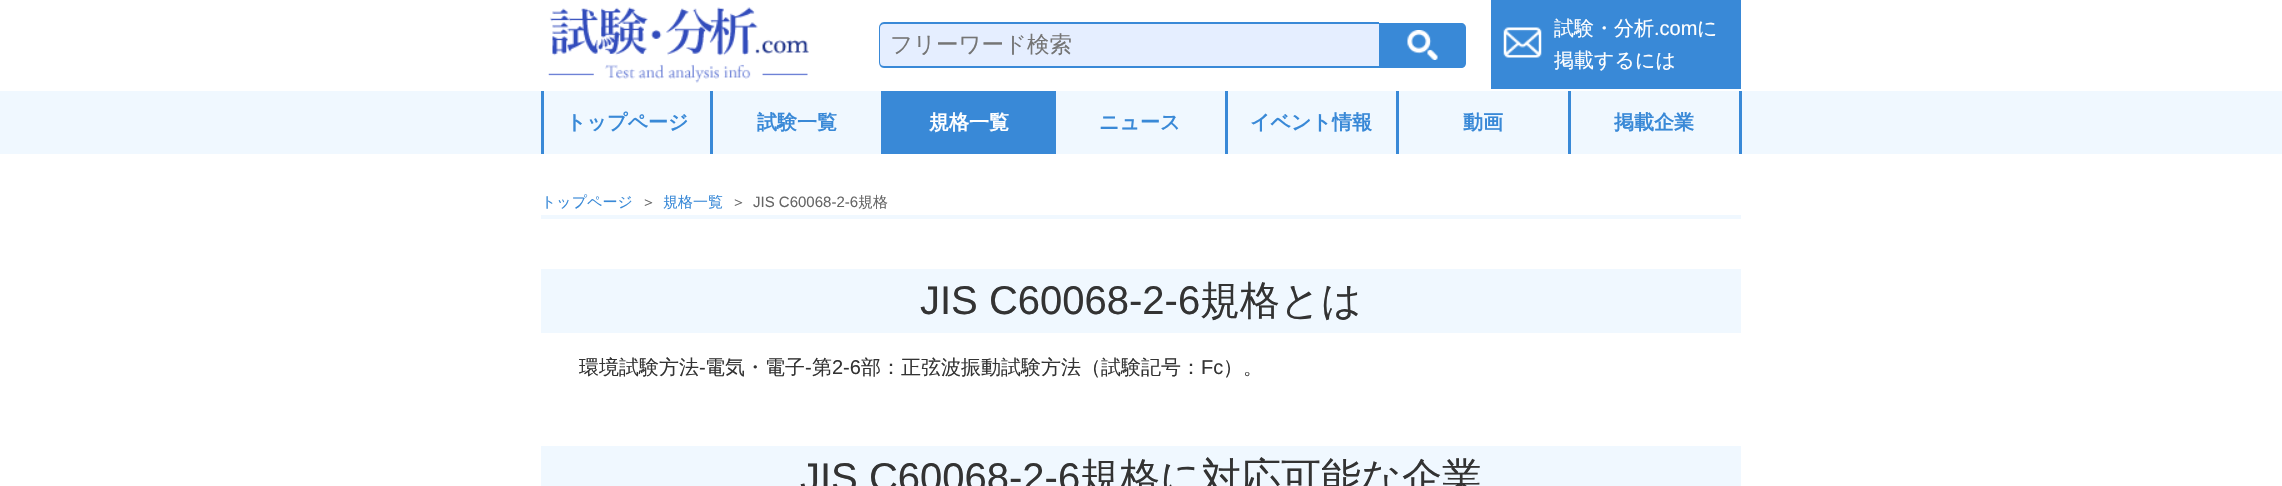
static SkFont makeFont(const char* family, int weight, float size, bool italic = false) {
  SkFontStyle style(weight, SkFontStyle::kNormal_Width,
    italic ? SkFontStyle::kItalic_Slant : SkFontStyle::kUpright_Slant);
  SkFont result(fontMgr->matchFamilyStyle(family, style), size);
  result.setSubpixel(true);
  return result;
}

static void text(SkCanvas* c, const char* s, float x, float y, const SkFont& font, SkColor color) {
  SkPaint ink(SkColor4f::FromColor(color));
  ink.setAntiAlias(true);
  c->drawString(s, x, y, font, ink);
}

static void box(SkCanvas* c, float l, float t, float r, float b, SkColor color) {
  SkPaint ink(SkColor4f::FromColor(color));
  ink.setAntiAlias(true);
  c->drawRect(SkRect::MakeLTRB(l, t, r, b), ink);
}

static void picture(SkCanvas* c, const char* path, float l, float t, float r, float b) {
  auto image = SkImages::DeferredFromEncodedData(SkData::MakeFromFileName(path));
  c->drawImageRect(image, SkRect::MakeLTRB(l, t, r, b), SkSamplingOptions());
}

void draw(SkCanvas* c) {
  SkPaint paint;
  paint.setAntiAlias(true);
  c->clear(0xffffffff);
  picture(c, "img_01.png", 548, 7, 809, 83);
  paint.setColor(0xffe5eeff);
  c->drawPath(SkPathBuilder().moveTo(884, 23).lineTo(1379, 23).lineTo(1379, 68).lineTo(884, 68).cubicTo(881, 68, 879, 66, 879, 63).lineTo(879, 28).cubicTo(879, 25, 881, 23, 884, 23).close().detach(), paint);
  paint.setColor(0xff3989d7);
  c->drawPath(SkPathBuilder(SkPathFillType::kEvenOdd).moveTo(884, 22).lineTo(1379, 22).lineTo(1379, 68).lineTo(884, 68).cubicTo(881, 68, 879, 65, 879, 62).lineTo(879, 28).cubicTo(879, 25, 881, 22, 884, 22).close().moveTo(884, 24).lineTo(1379, 24).lineTo(1379, 66).lineTo(884, 66).cubicTo(882, 66, 880, 65, 880, 62).lineTo(880, 28).cubicTo(880, 25, 882, 24, 884, 24).close().detach(), paint);
  SkFont face1 = makeFont("WenQuanYi Zen Hei", 500, 22.5f);
  text(c, "フリーワード検索", 890, 52, face1, 0xff757575);
  c->drawPath(SkPathBuilder().moveTo(1379, 23).lineTo(1461, 23).cubicTo(1464, 23, 1466, 25, 1466, 28).lineTo(1466, 63).cubicTo(1466, 66, 1464, 68, 1461, 68).lineTo(1379, 68).close().detach(), paint);
  picture(c, "img_02.png", 1407, 30, 1438, 60);
  box(c, 1491, 0, 1741, 89, 0xff3989d7);
  picture(c, "img_03.png", 1503, 27, 1542, 58);
  SkFont face2 = makeFont("WenQuanYi Zen Hei", 500, 20);
  text(c, "試験・分析", 1554, 35, face2, 0xffffffff);
  SkFont face3 = makeFont("Liberation Sans", 400, 20);
  text(c, ".com", 1654, 35, face3, 0xffffffff);
  text(c, "に", 1697, 35, face2, 0xffffffff);
  text(c, "掲載するには", 1554, 67, face2, 0xffffffff);
  box(c, 0, 91, 2282, 154, 0xfff0f8ff);
  box(c, 710, 91, 713, 154, 0xff3989d7);
  box(c, 541, 91, 544, 154, 0xff3989d7);
  SkFont face4 = makeFont("WenQuanYi Zen Hei", 700, 20);
  text(c, "トップページ", 566, 129, face4, 0xff3989d7);
  box(c, 881, 91, 884, 154, 0xff3989d7);
  text(c, "試験一覧", 757, 129, face4, 0xff3989d7);
  box(c, 884, 91, 1056, 154, 0xff3989d7);
  text(c, "規格一覧", 929, 129, face4, 0xffffffff);
  box(c, 1225, 91, 1228, 154, 0xff3989d7);
  text(c, "ニュース", 1099, 129, face4, 0xff3989d7);
  box(c, 1396, 91, 1399, 154, 0xff3989d7);
  text(c, "イベント情報", 1250, 129, face4, 0xff3989d7);
  box(c, 1568, 91, 1571, 154, 0xff3989d7);
  text(c, "動画", 1463, 129, face4, 0xff3989d7);
  box(c, 1739, 91, 1742, 154, 0xff3989d7);
  text(c, "掲載企業", 1614, 129, face4, 0xff3989d7);
  box(c, 541, 215, 1741, 219, 0xfff0f8ff);
  SkFont face5 = makeFont("WenQuanYi Zen Hei", 500, 15);
  text(c, "トップページ", 541, 207, face5, 0xff3989d7);
  text(c, "＞", 641, 207, face5, 0xff666666);
  text(c, "規格一覧", 663, 207, face5, 0xff3989d7);
  text(c, "＞", 731, 207, face5, 0xff666666);
  SkFont face6 = makeFont("Liberation Sans", 400, 15);
  text(c, "JIS C60068-2-6", 753, 207, face6, 0xff666666);
  text(c, "規格", 858, 207, face5, 0xff666666);
  box(c, 541, 269, 1741, 333, 0xfff0f8ff);
  SkFont face7 = makeFont("Liberation Sans", 400, 40);
  text(c, "JIS C60068-2-6", 920, 314, face7, 0xff333333);
  SkFont face8 = makeFont("WenQuanYi Zen Hei", 500, 40);
  text(c, "規格とは", 1200, 314, face8, 0xff333333);
  text(c, "環境試験方法", 579, 374, face2, 0xff333333);
  text(c, "-", 699, 374, face3, 0xff333333);
  text(c, "電気・電子", 705, 374, face2, 0xff333333);
  text(c, "-", 805, 374, face3, 0xff333333);
  text(c, "第", 812, 374, face2, 0xff333333);
  text(c, "2-6", 832, 374, face3, 0xff333333);
  text(c, "部：正弦波振動試験方法（試験記号：", 861, 374, face2, 0xff333333);
  text(c, "Fc", 1201, 374, face3, 0xff333333);
  text(c, "）。", 1223, 374, face2, 0xff333333);
  box(c, 541, 446, 1741, 486, 0xfff0f8ff);
  text(c, "JIS C60068-2-6", 800, 491, face7, 0xff333333);
  text(c, "規格に対応可能な企業", 1080, 491, face8, 0xff333333);
}
